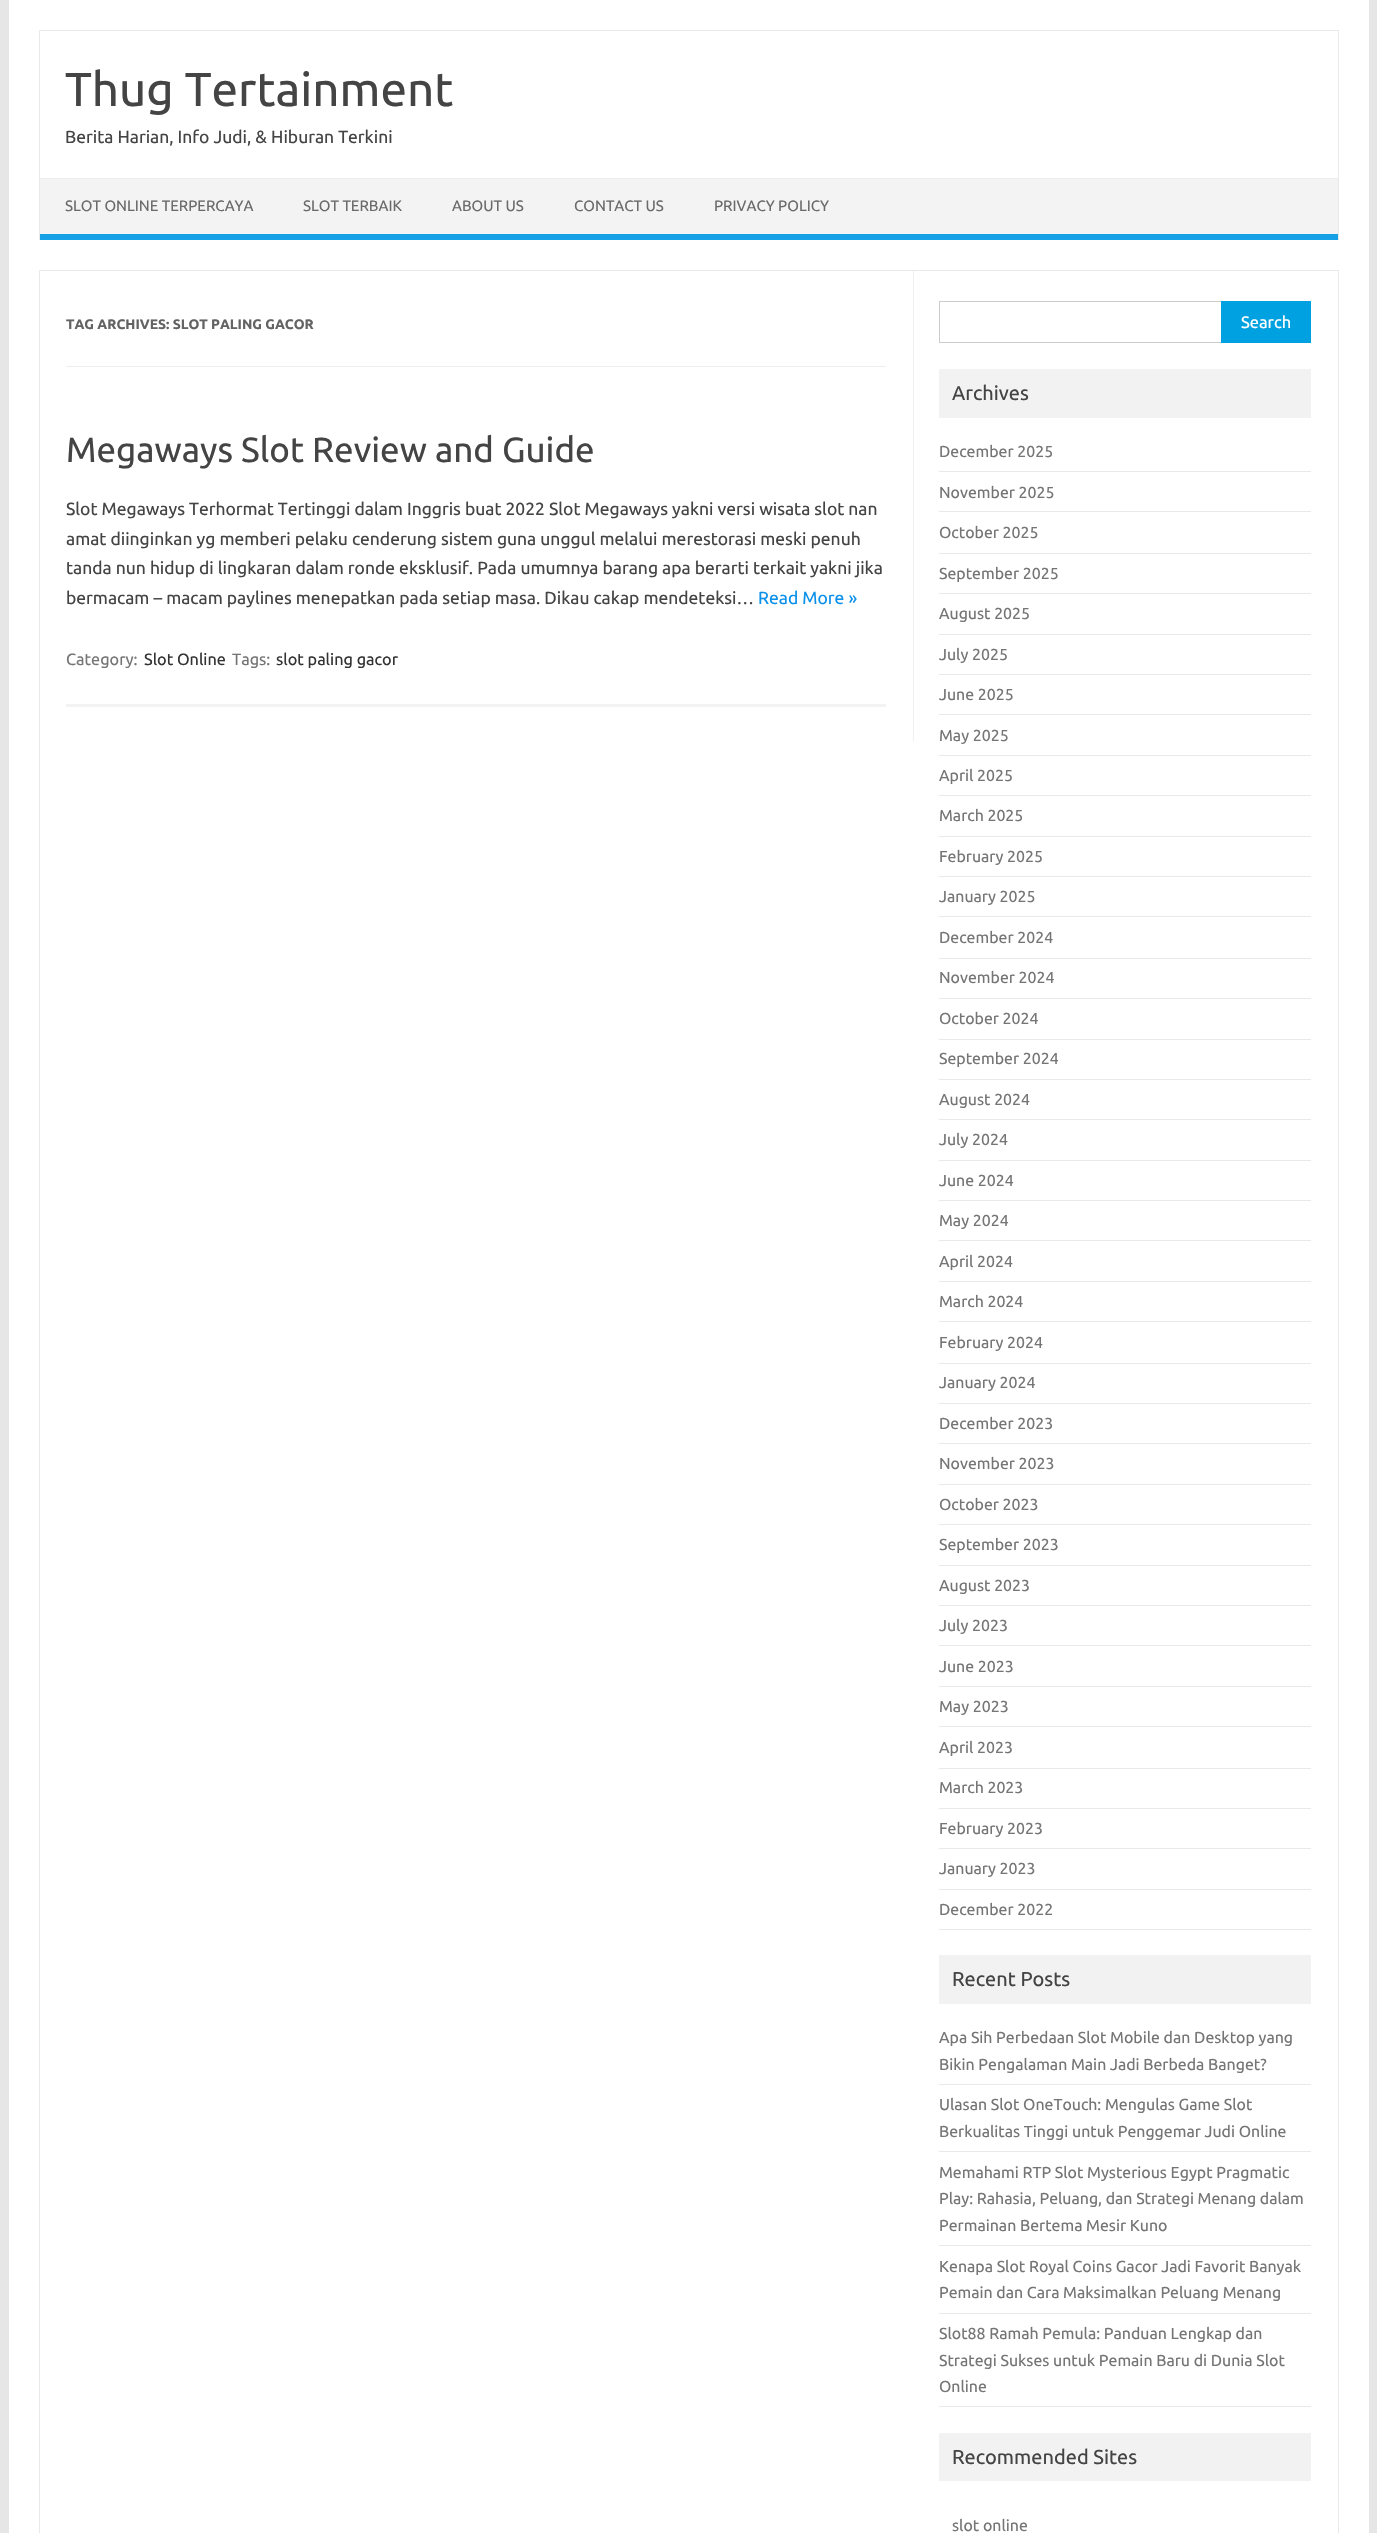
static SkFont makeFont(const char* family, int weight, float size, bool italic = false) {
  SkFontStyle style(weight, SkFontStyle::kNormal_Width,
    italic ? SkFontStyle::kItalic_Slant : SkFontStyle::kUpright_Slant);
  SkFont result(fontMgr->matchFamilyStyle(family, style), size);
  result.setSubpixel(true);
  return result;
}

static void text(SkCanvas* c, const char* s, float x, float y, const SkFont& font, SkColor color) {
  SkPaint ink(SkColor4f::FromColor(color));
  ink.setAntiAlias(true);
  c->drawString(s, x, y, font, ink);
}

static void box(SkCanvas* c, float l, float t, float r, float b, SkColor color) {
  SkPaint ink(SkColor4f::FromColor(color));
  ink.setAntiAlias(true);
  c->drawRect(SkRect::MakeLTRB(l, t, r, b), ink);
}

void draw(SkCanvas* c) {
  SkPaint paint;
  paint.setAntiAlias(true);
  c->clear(0xffe6e6e6);
  box(c, 9, 0, 1369, 2533, 0xffffffff);
  box(c, 39, 30, 1339, 31, 0xffe9e9e9);
  box(c, 1338, 30, 1339, 240, 0xffe9e9e9);
  box(c, 39, 30, 40, 240, 0xffe9e9e9);
  SkFont face1 = makeFont("Ubuntu", 400, 47.5f);
  text(c, "Thug Tertainment", 65, 106, face1, 0xff444444);
  SkFont face2 = makeFont("Ubuntu", 400, 17.5f);
  text(c, "Berita Harian, Info Judi, & Hiburan Terkini", 65, 143, face2, 0xff444444);
  box(c, 40, 179, 1338, 234, 0xfff3f3f3);
  box(c, 40, 178, 1338, 179, 0xffededed);
  box(c, 40, 234, 1338, 240, 0xff16a1e7);
  SkFont face3 = makeFont("Ubuntu", 400, 15);
  text(c, "SLOT ONLINE TERPERCAYA", 65, 211, face3, 0xff6a6a6a);
  text(c, "SLOT TERBAIK", 303, 211, face3, 0xff6a6a6a);
  text(c, "ABOUT US", 452, 211, face3, 0xff6a6a6a);
  text(c, "CONTACT US", 574, 211, face3, 0xff6a6a6a);
  text(c, "PRIVACY POLICY", 714, 211, face3, 0xff6a6a6a);
  paint.setStyle(SkPaint::kStroke_Style);
  paint.setStrokeWidth(1);
  paint.setColor(0xffe9e9e9);
  c->drawRect(SkRect::MakeLTRB(39.5f, 270.5f, 1338.5f, 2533.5f), paint);
  box(c, 913, 271, 914, 741, 0xfff1f1f1);
  box(c, 66, 366, 886, 367, 0xffededed);
  SkFont face4 = makeFont("Ubuntu", 700, 13.75f);
  text(c, "TAG ARCHIVES: SLOT PALING GACOR", 66, 329, face4, 0xff636363);
  box(c, 66, 704, 886, 707, 0xfff3f3f3);
  SkFont face5 = makeFont("Ubuntu", 400, 35);
  text(c, "Megaways Slot Review and Guide", 66, 462, face5, 0xff444444);
  text(c, "Slot Megaways Terhormat Tertinggi dalam Inggris buat 2022 Slot Megaways yakni versi wisata slot nan", 66, 515, face2, 0xff444444);
  text(c, "amat diinginkan yg memberi pelaku cenderung sistem guna unggul melalui merestorasi meski penuh", 66, 545, face2, 0xff444444);
  text(c, "tanda nun hidup di lingkaran dalam ronde eksklusif. Pada umumnya barang apa berarti terkait yakni jika", 66, 574, face2, 0xff444444);
  text(c, "bermacam – macam paylines menepatkan pada setiap masa. Dikau cakap mendeteksi…", 66, 604, face2, 0xff444444);
  text(c, "Read More »", 758, 604, face2, 0xff0b91ea);
  SkFont face6 = makeFont("Ubuntu", 400, 16.25f);
  text(c, "Category:", 66, 665, face6, 0xff757575);
  text(c, "Slot Online", 144, 665, face6, 0xff333333);
  text(c, "Tags:", 232, 665, face6, 0xff757575);
  text(c, "slot paling gacor", 276, 665, face6, 0xff333333);
  paint.setColor(0xffcccccc);
  c->drawRect(SkRect::MakeLTRB(939.5f, 301.5f, 1223.5f, 342.5f), paint);
  box(c, 1221, 301, 1311, 343, 0xff00a1e0);
  SkFont face7 = makeFont("Ubuntu", 400, 16.5f);
  text(c, "Search", 1241, 328, face7, 0xffffffff);
  box(c, 939, 369, 1311, 418, 0xfff2f2f2);
  SkFont face8 = makeFont("Ubuntu", 400, 20);
  text(c, "Archives", 952, 400, face8, 0xff444444);
  box(c, 939, 471, 1311, 472, 0xffe9e9e9);
  SkFont face9 = makeFont("Ubuntu", 400, 15.9f);
  text(c, "December 2025", 939, 457, face9, 0xff757575);
  box(c, 939, 511, 1311, 512, 0xffe9e9e9);
  text(c, "November 2025", 939, 498, face9, 0xff757575);
  box(c, 939, 553, 1311, 554, 0xffe9e9e9);
  text(c, "October 2025", 939, 538, face9, 0xff757575);
  box(c, 939, 593, 1311, 594, 0xffe9e9e9);
  text(c, "September 2025", 939, 579, face9, 0xff757575);
  box(c, 939, 634, 1311, 635, 0xffe9e9e9);
  text(c, "August 2025", 939, 619, face9, 0xff757575);
  box(c, 939, 674, 1311, 675, 0xffe9e9e9);
  text(c, "July 2025", 939, 660, face9, 0xff757575);
  box(c, 939, 714, 1311, 715, 0xffe9e9e9);
  text(c, "June 2025", 939, 700, face9, 0xff757575);
  box(c, 939, 755, 1311, 756, 0xffe9e9e9);
  text(c, "May 2025", 939, 741, face9, 0xff757575);
  box(c, 939, 795, 1311, 796, 0xffe9e9e9);
  text(c, "April 2025", 939, 781, face9, 0xff757575);
  box(c, 939, 836, 1311, 837, 0xffe9e9e9);
  text(c, "March 2025", 939, 821, face9, 0xff757575);
  box(c, 939, 876, 1311, 877, 0xffe9e9e9);
  text(c, "February 2025", 939, 862, face9, 0xff757575);
  box(c, 939, 916, 1311, 917, 0xffe9e9e9);
  text(c, "January 2025", 939, 902, face9, 0xff757575);
  box(c, 939, 958, 1311, 959, 0xffe9e9e9);
  text(c, "December 2024", 939, 943, face9, 0xff757575);
  box(c, 939, 998, 1311, 999, 0xffe9e9e9);
  text(c, "November 2024", 939, 983, face9, 0xff757575);
  box(c, 939, 1039, 1311, 1040, 0xffe9e9e9);
  text(c, "October 2024", 939, 1024, face9, 0xff757575);
  box(c, 939, 1079, 1311, 1080, 0xffe9e9e9);
  text(c, "September 2024", 939, 1064, face9, 0xff757575);
  box(c, 939, 1119, 1311, 1120, 0xffe9e9e9);
  text(c, "August 2024", 939, 1105, face9, 0xff757575);
  box(c, 939, 1160, 1311, 1161, 0xffe9e9e9);
  text(c, "July 2024", 939, 1145, face9, 0xff757575);
  box(c, 939, 1200, 1311, 1201, 0xffe9e9e9);
  text(c, "June 2024", 939, 1186, face9, 0xff757575);
  box(c, 939, 1240, 1311, 1241, 0xffe9e9e9);
  text(c, "May 2024", 939, 1226, face9, 0xff757575);
  box(c, 939, 1281, 1311, 1282, 0xffe9e9e9);
  text(c, "April 2024", 939, 1267, face9, 0xff757575);
  box(c, 939, 1321, 1311, 1322, 0xffe9e9e9);
  text(c, "March 2024", 939, 1307, face9, 0xff757575);
  box(c, 939, 1363, 1311, 1364, 0xffe9e9e9);
  text(c, "February 2024", 939, 1348, face9, 0xff757575);
  box(c, 939, 1403, 1311, 1404, 0xffe9e9e9);
  text(c, "January 2024", 939, 1388, face9, 0xff757575);
  box(c, 939, 1443, 1311, 1444, 0xffe9e9e9);
  text(c, "December 2023", 939, 1429, face9, 0xff757575);
  box(c, 939, 1484, 1311, 1485, 0xffe9e9e9);
  text(c, "November 2023", 939, 1469, face9, 0xff757575);
  box(c, 939, 1524, 1311, 1525, 0xffe9e9e9);
  text(c, "October 2023", 939, 1510, face9, 0xff757575);
  box(c, 939, 1565, 1311, 1566, 0xffe9e9e9);
  text(c, "September 2023", 939, 1550, face9, 0xff757575);
  box(c, 939, 1605, 1311, 1606, 0xffe9e9e9);
  text(c, "August 2023", 939, 1591, face9, 0xff757575);
  box(c, 939, 1645, 1311, 1646, 0xffe9e9e9);
  text(c, "July 2023", 939, 1631, face9, 0xff757575);
  box(c, 939, 1686, 1311, 1687, 0xffe9e9e9);
  text(c, "June 2023", 939, 1672, face9, 0xff757575);
  box(c, 939, 1726, 1311, 1727, 0xffe9e9e9);
  text(c, "May 2023", 939, 1712, face9, 0xff757575);
  box(c, 939, 1768, 1311, 1769, 0xffe9e9e9);
  text(c, "April 2023", 939, 1753, face9, 0xff757575);
  box(c, 939, 1808, 1311, 1809, 0xffe9e9e9);
  text(c, "March 2023", 939, 1793, face9, 0xff757575);
  box(c, 939, 1848, 1311, 1849, 0xffe9e9e9);
  text(c, "February 2023", 939, 1834, face9, 0xff757575);
  box(c, 939, 1889, 1311, 1890, 0xffe9e9e9);
  text(c, "January 2023", 939, 1874, face9, 0xff757575);
  box(c, 939, 1929, 1311, 1930, 0xffe9e9e9);
  text(c, "December 2022", 939, 1915, face9, 0xff757575);
  box(c, 939, 1955, 1311, 2004, 0xfff2f2f2);
  text(c, "Recent Posts", 952, 1986, face8, 0xff444444);
  box(c, 939, 2084, 1311, 2085, 0xffe9e9e9);
  text(c, "Apa Sih Perbedaan Slot Mobile dan Desktop yang", 939, 2043, face9, 0xff757575);
  text(c, "Bikin Pengalaman Main Jadi Berbeda Banget?", 939, 2070, face9, 0xff757575);
  box(c, 939, 2151, 1311, 2152, 0xffe9e9e9);
  text(c, "Ulasan Slot OneTouch: Mengulas Game Slot", 939, 2110, face9, 0xff757575);
  text(c, "Berkualitas Tinggi untuk Penggemar Judi Online", 939, 2137, face9, 0xff757575);
  box(c, 939, 2245, 1311, 2246, 0xffe9e9e9);
  text(c, "Memahami RTP Slot Mysterious Egypt Pragmatic", 939, 2178, face9, 0xff757575);
  text(c, "Play: Rahasia, Peluang, dan Strategi Menang dalam", 939, 2204, face9, 0xff757575);
  text(c, "Permainan Bertema Mesir Kuno", 939, 2231, face9, 0xff757575);
  box(c, 939, 2313, 1311, 2314, 0xffe9e9e9);
  text(c, "Kenapa Slot Royal Coins Gacor Jadi Favorit Banyak", 939, 2272, face9, 0xff757575);
  text(c, "Pemain dan Cara Maksimalkan Peluang Menang", 939, 2298, face9, 0xff757575);
  box(c, 939, 2406, 1311, 2407, 0xffe9e9e9);
  text(c, "Slot88 Ramah Pemula: Panduan Lengkap dan", 939, 2339, face9, 0xff757575);
  text(c, "Strategi Sukses untuk Pemain Baru di Dunia Slot", 939, 2366, face9, 0xff757575);
  text(c, "Online", 939, 2392, face9, 0xff757575);
  box(c, 939, 2433, 1311, 2481, 0xfff2f2f2);
  text(c, "Recommended Sites", 952, 2464, face8, 0xff444444);
  text(c, "slot online", 952, 2531, face9, 0xff757575);
}
